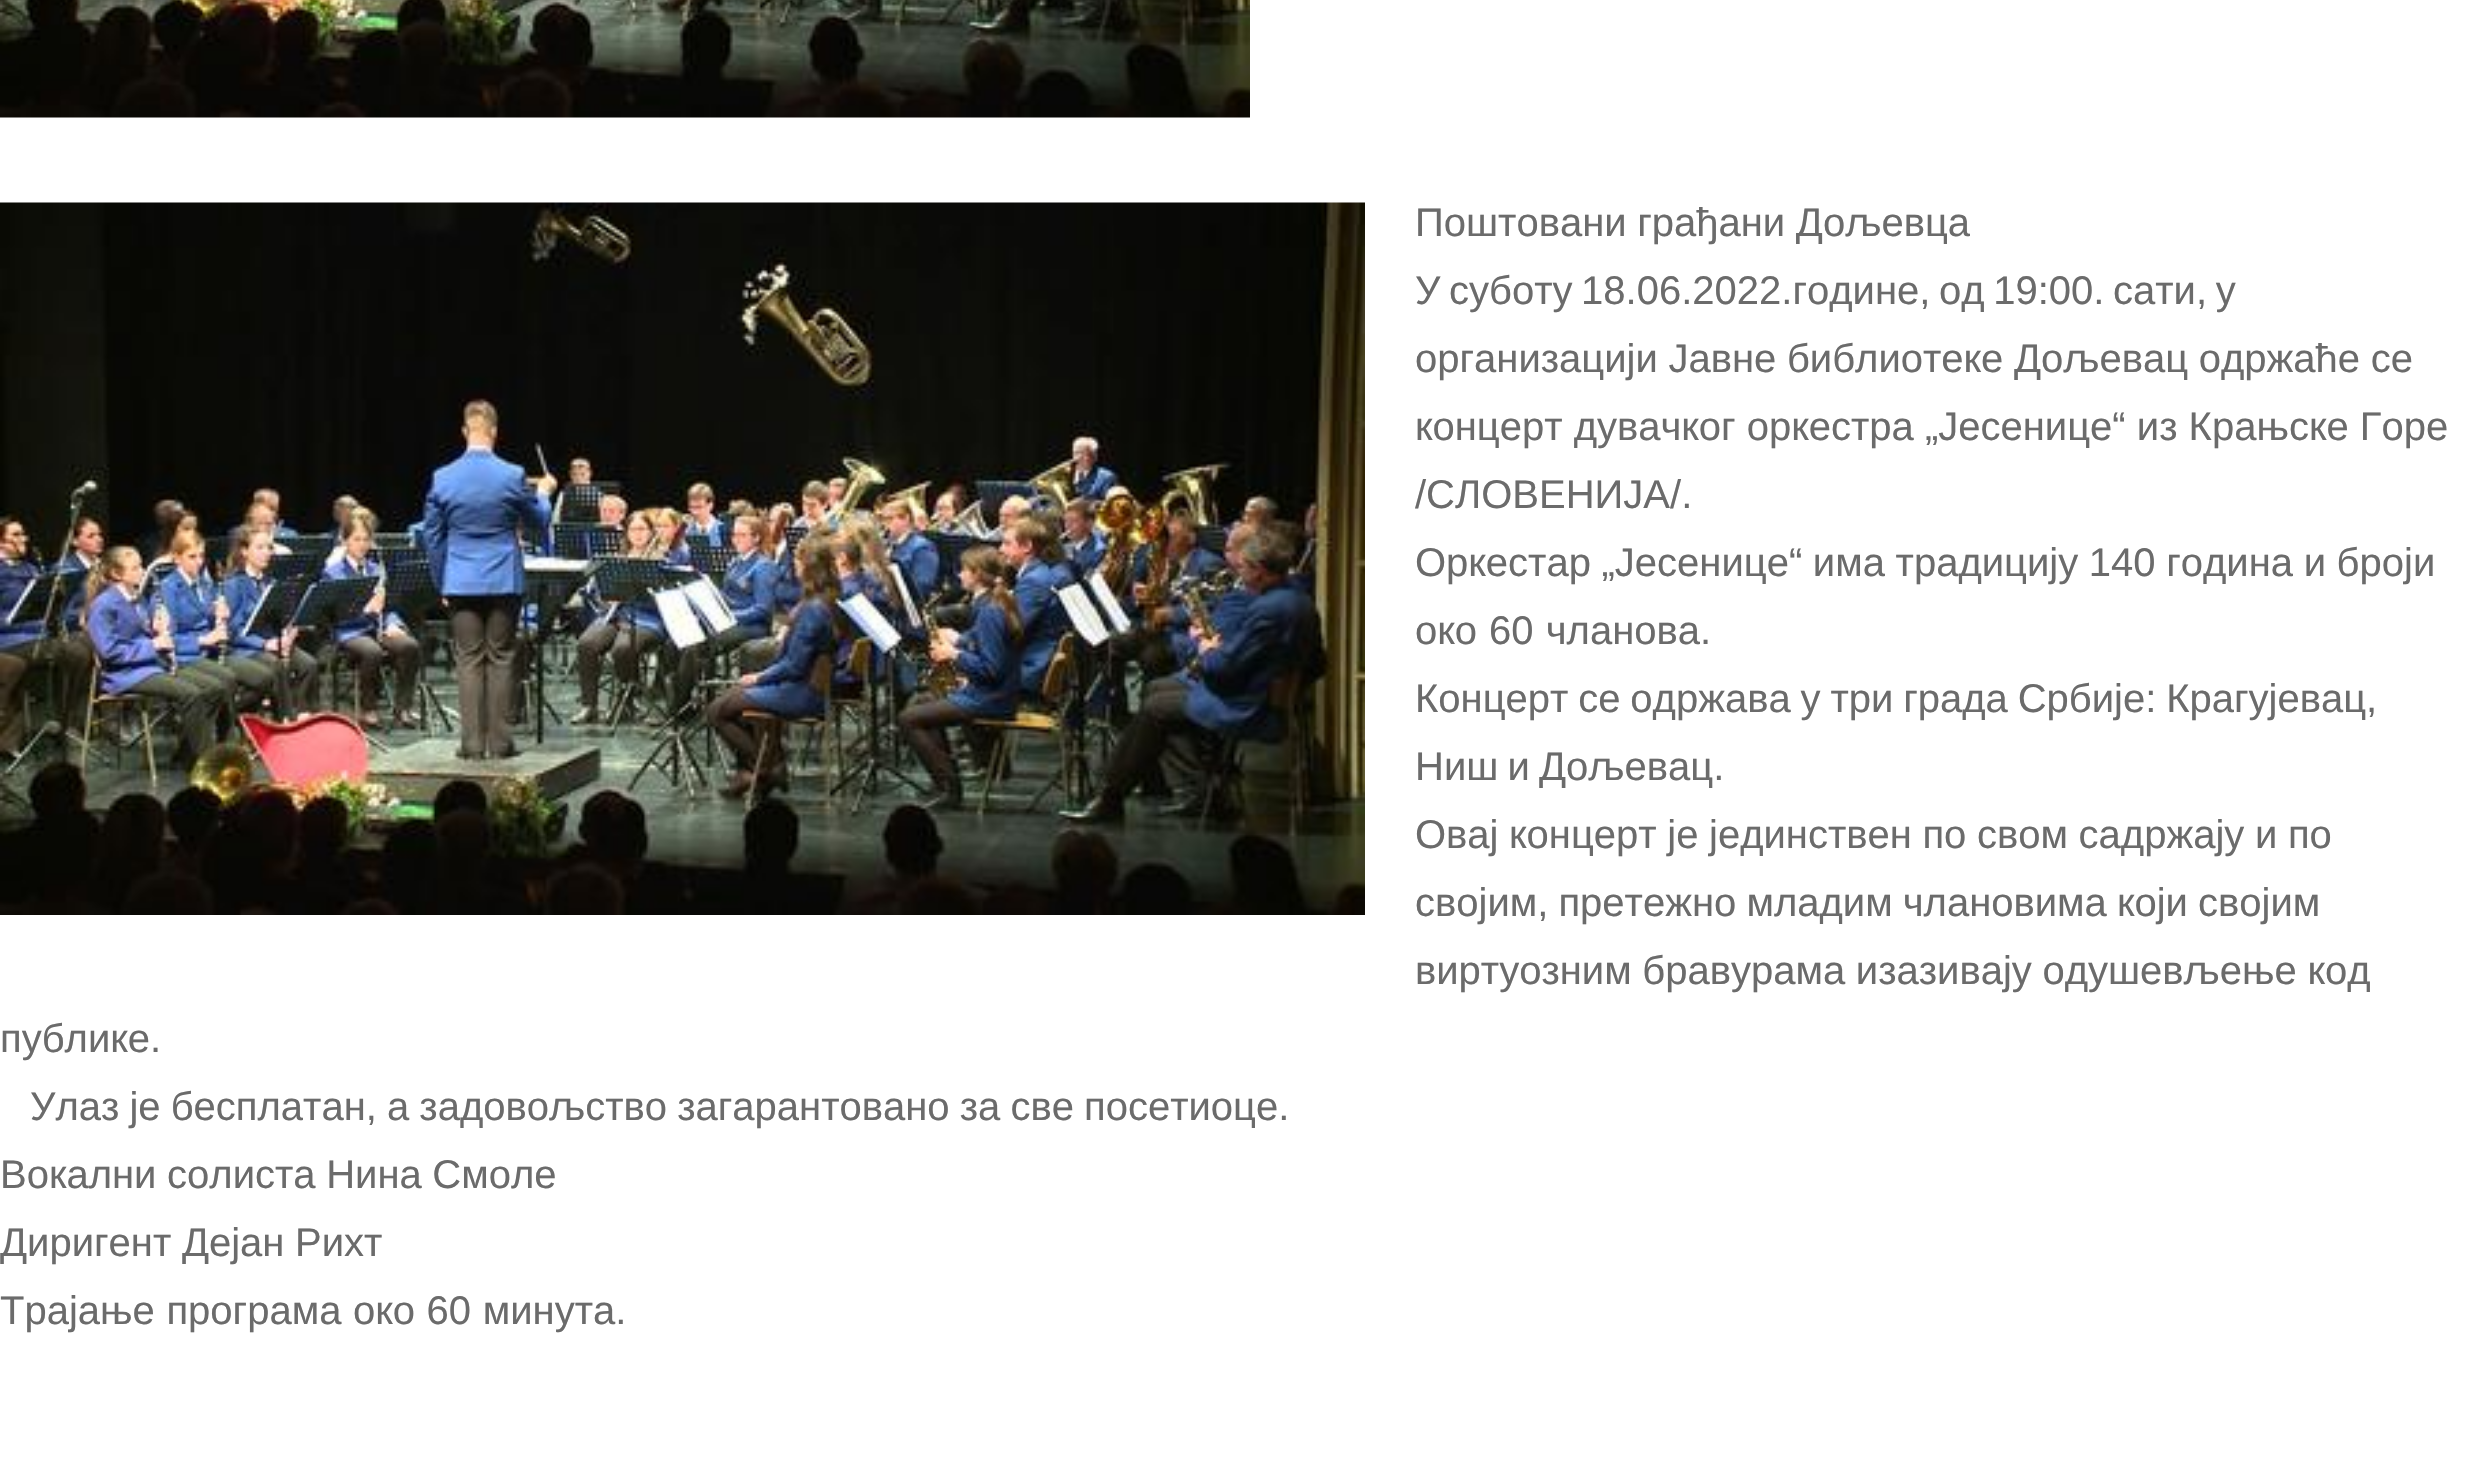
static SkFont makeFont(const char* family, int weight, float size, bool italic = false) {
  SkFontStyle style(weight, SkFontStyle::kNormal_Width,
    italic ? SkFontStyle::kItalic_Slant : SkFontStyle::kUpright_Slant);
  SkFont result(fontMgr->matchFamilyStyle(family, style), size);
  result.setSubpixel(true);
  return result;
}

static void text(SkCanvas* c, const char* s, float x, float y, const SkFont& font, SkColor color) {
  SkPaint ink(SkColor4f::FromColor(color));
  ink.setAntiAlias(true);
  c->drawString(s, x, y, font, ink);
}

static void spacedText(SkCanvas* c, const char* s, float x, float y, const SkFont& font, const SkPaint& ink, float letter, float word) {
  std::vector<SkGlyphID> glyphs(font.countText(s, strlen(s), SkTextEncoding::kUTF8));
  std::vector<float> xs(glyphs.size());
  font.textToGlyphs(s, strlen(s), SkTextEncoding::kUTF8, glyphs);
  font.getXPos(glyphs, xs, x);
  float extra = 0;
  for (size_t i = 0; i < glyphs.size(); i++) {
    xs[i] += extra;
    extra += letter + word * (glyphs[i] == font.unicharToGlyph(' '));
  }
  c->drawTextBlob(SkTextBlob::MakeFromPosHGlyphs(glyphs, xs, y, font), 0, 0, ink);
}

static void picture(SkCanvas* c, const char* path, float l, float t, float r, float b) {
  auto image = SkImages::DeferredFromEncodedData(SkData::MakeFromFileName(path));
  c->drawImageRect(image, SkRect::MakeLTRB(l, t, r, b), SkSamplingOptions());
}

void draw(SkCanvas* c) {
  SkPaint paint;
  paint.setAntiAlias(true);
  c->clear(0xffffffff);
  picture(c, "img_01.png", 0, 0, 1250, 118);
  picture(c, "img_02.png", 0, 202, 1365, 915);
  SkFont face1 = makeFont("Liberation Sans", 400, 40);
  paint.setColor(0xff6b6b6b);
  spacedText(c, "Поштовани грађани Дољевца", 1415, 236, face1, paint, 0, -0.5f);
  spacedText(c, "У суботу 18.06.2022.године, од 19:00. сати, у", 1415, 304, face1, paint, 0, -2.5f);
  spacedText(c, "организацији Јавне библиотеке Дољевац одржаће се", 1415, 372, face1, paint, 0, -0.5f);
  text(c, "концерт дувачког оркестра „Јесенице“ из Крањске Горе", 1415, 440, face1, 0xff6b6b6b);
  text(c, "/СЛОВЕНИЈА/.", 1415, 508, face1, 0xff6b6b6b);
  spacedText(c, "Оркестар „Јесенице“ има традицију 140 година и броји", 1415, 576, face1, paint, 0, -0.5f);
  spacedText(c, "око 60 чланова.", 1415, 644, face1, paint, 0, 1);
  spacedText(c, "Концерт се одржава у три града Србије: Крагујевац,", 1415, 712, face1, paint, 0, -1.25f);
  spacedText(c, "Ниш и Дољевац.", 1415, 780, face1, paint, 0, -2);
  spacedText(c, "Овај концерт је јединствен по свом садржају и по", 1415, 848, face1, paint, 0, -0.5f);
  spacedText(c, "својим, претежно младим члановима који својим", 1415, 916, face1, paint, 0, -1);
  spacedText(c, "виртуозним бравурама изазивају одушевљење код", 1415, 984, face1, paint, 0, -0.5f);
  text(c, "публике.", 0, 1052, face1, 0xff6b6b6b);
  spacedText(c, "Улаз је бесплатан, а задовољство загарантовано за све посетиоце.", 30, 1120, face1, paint, 0, -1);
  spacedText(c, "Вокални солиста Нина Смоле", 0, 1188, face1, paint, 0, -0.5f);
  spacedText(c, "Диригент Дејан Рихт", 0, 1256, face1, paint, 0, -0.5f);
  spacedText(c, "Трајање програма око 60 минута.", 0, 1324, face1, paint, 0, 0.5f);
}
